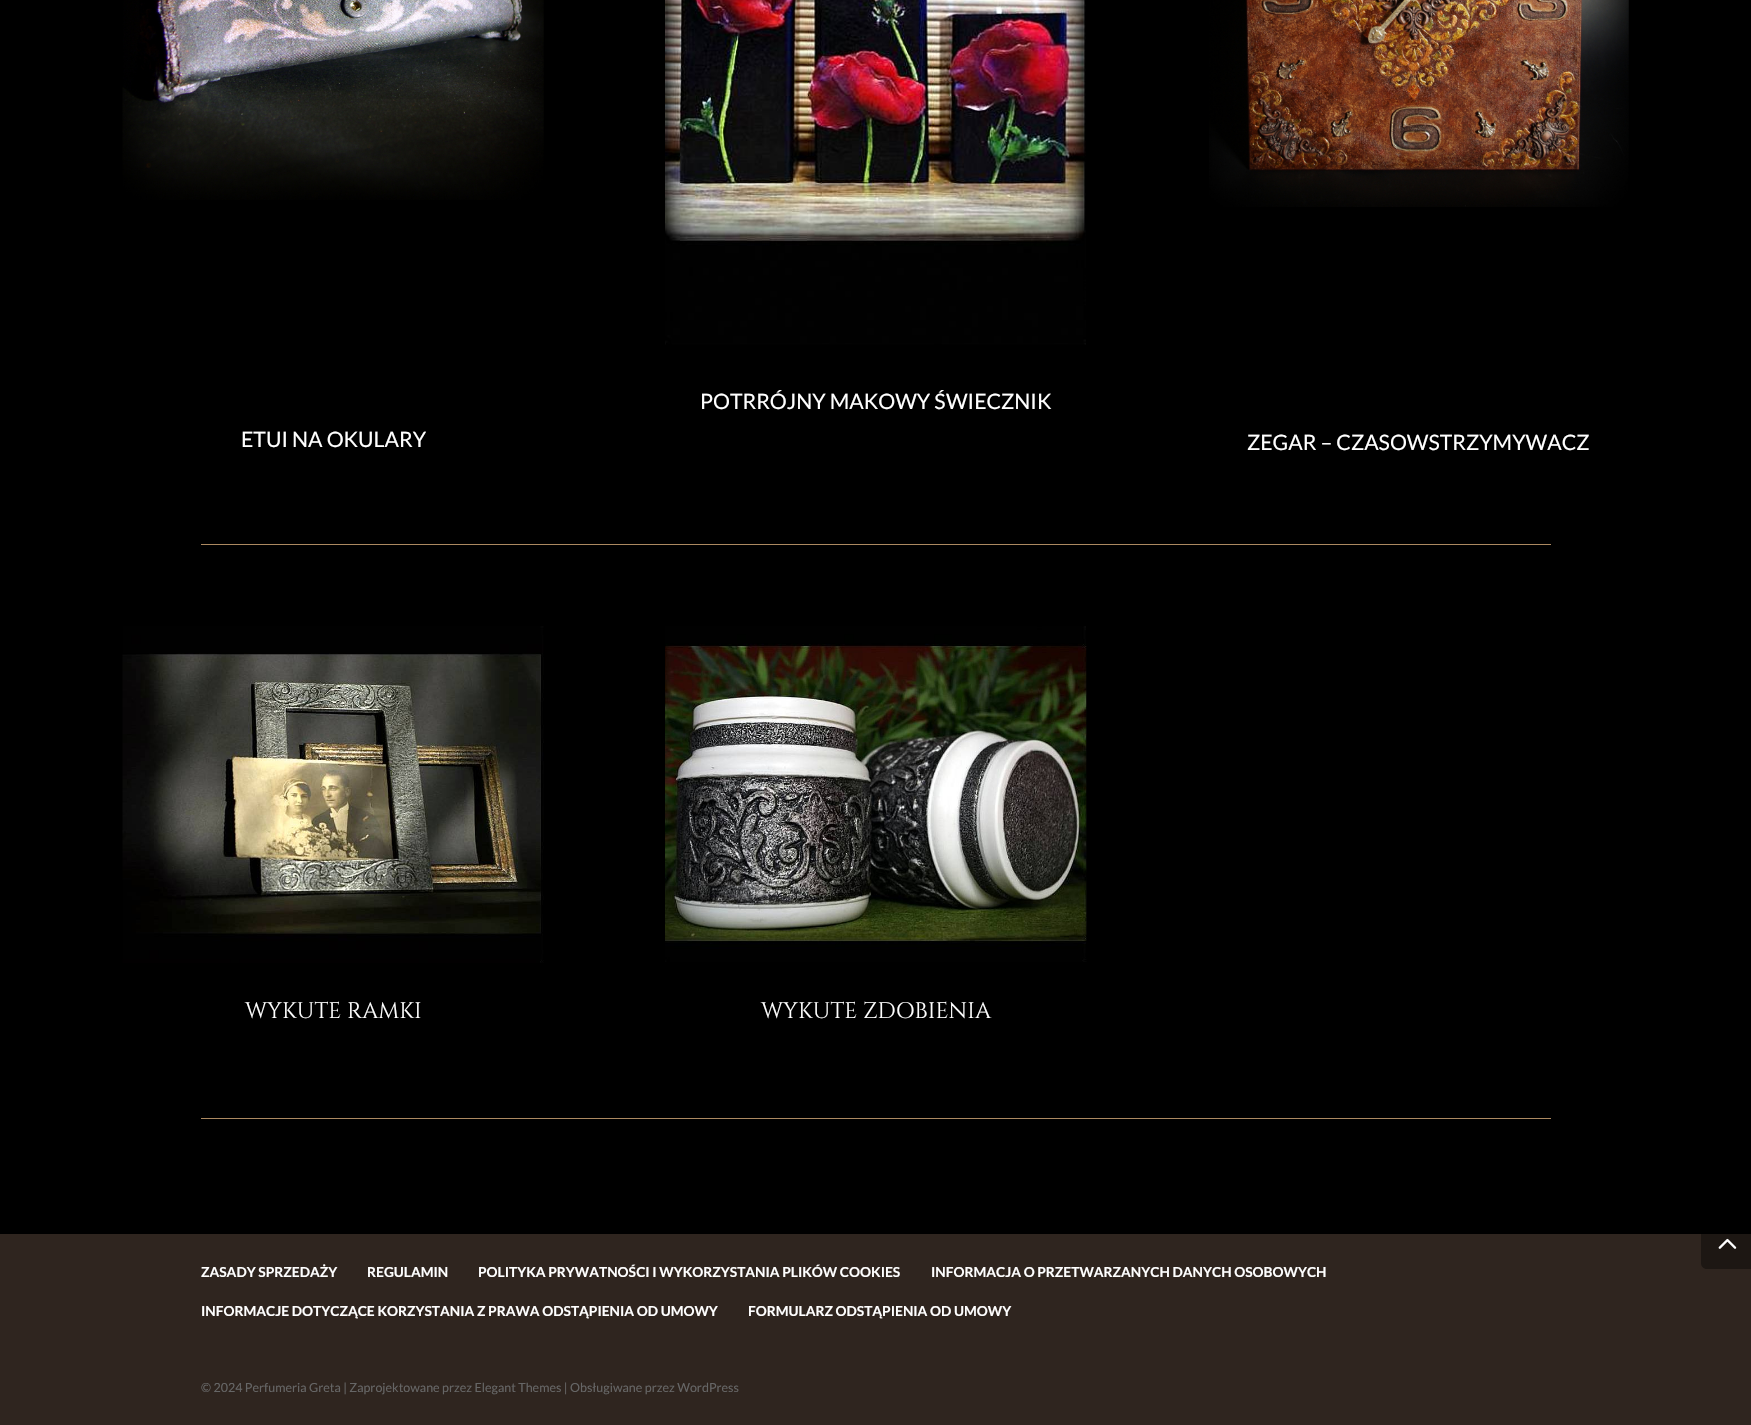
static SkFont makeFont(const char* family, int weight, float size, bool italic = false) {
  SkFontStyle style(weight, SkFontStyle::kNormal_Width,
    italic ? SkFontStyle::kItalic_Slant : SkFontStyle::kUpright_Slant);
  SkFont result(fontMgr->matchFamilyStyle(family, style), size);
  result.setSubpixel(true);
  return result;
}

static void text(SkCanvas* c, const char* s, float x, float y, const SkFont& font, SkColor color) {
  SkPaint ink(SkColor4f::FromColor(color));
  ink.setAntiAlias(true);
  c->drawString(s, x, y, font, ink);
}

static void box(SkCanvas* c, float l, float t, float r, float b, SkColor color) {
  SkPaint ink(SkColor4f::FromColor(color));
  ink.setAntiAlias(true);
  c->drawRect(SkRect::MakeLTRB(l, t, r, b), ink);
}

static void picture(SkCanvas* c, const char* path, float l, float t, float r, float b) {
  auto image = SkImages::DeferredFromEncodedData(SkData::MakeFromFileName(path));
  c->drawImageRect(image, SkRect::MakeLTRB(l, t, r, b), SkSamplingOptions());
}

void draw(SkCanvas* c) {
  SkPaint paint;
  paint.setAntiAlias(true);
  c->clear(0xff2f251f);
  box(c, 0, 0, 1751, 1234, 0xff000000);
  picture(c, "img_01.png", 665, 0, 1086, 345);
  SkFont face1 = makeFont("Lato", 400, 21.25f);
  text(c, "POTRRÓJNY MAKOWY ŚWIECZNIK", 700, 409, face1, 0xffffffff);
  picture(c, "img_02.png", 122, 0, 544, 200);
  text(c, "ETUI NA OKULARY", 241, 447, face1, 0xffffffff);
  picture(c, "img_03.png", 1209, 0, 1629, 207);
  text(c, "ZEGAR – CZASOWSTRZYMYWACZ", 1247, 450, face1, 0xffffffff);
  box(c, 201, 544, 1551, 545, 0xffac8961);
  picture(c, "img_04.png", 122, 626, 544, 963);
  SkFont face2 = makeFont("Cinzel", 400, 22.5f);
  text(c, "WYKUTE RAMKI", 245, 1018, face2, 0xffffffff);
  picture(c, "img_05.png", 665, 626, 1087, 962);
  text(c, "WYKUTE ZDOBIENIA", 761, 1018, face2, 0xffffffff);
  box(c, 201, 1118, 1551, 1119, 0xffac8961);
  paint.setColor(0x66000000);
  c->drawPath(SkPathBuilder().moveTo(1707, 1219).lineTo(1751, 1219).lineTo(1751, 1269).lineTo(1707, 1269).cubicTo(1703.5f, 1269, 1701, 1266.5f, 1701, 1263).lineTo(1701, 1225).cubicTo(1701, 1221.5f, 1703.5f, 1219, 1707, 1219).close().detach(), paint);
  picture(c, "img_06.png", 1718, 1238, 1737, 1249);
  SkFont face3 = makeFont("Lato", 700, 13.75f);
  text(c, "ZASADY SPRZEDAŻY", 201, 1277, face3, 0xffffffff);
  text(c, "REGULAMIN", 367, 1277, face3, 0xffffffff);
  text(c, "POLITYKA PRYWATNOŚCI I WYKORZYSTANIA PLIKÓW COOKIES", 478, 1277, face3, 0xffffffff);
  text(c, "INFORMACJA O PRZETWARZANYCH DANYCH OSOBOWYCH", 931, 1277, face3, 0xffffffff);
  text(c, "INFORMACJE DOTYCZĄCE KORZYSTANIA Z PRAWA ODSTĄPIENIA OD UMOWY", 201, 1316, face3, 0xffffffff);
  text(c, "FORMULARZ ODSTĄPIENIA OD UMOWY", 748, 1316, face3, 0xffffffff);
  SkFont face4 = makeFont("Lato", 400, 12.5f);
  text(c, "© 2024 Perfumeria Greta | Zaprojektowane przez Elegant Themes | Obsługiwane przez WordPress", 201, 1392, face4, 0xff666666);
}
